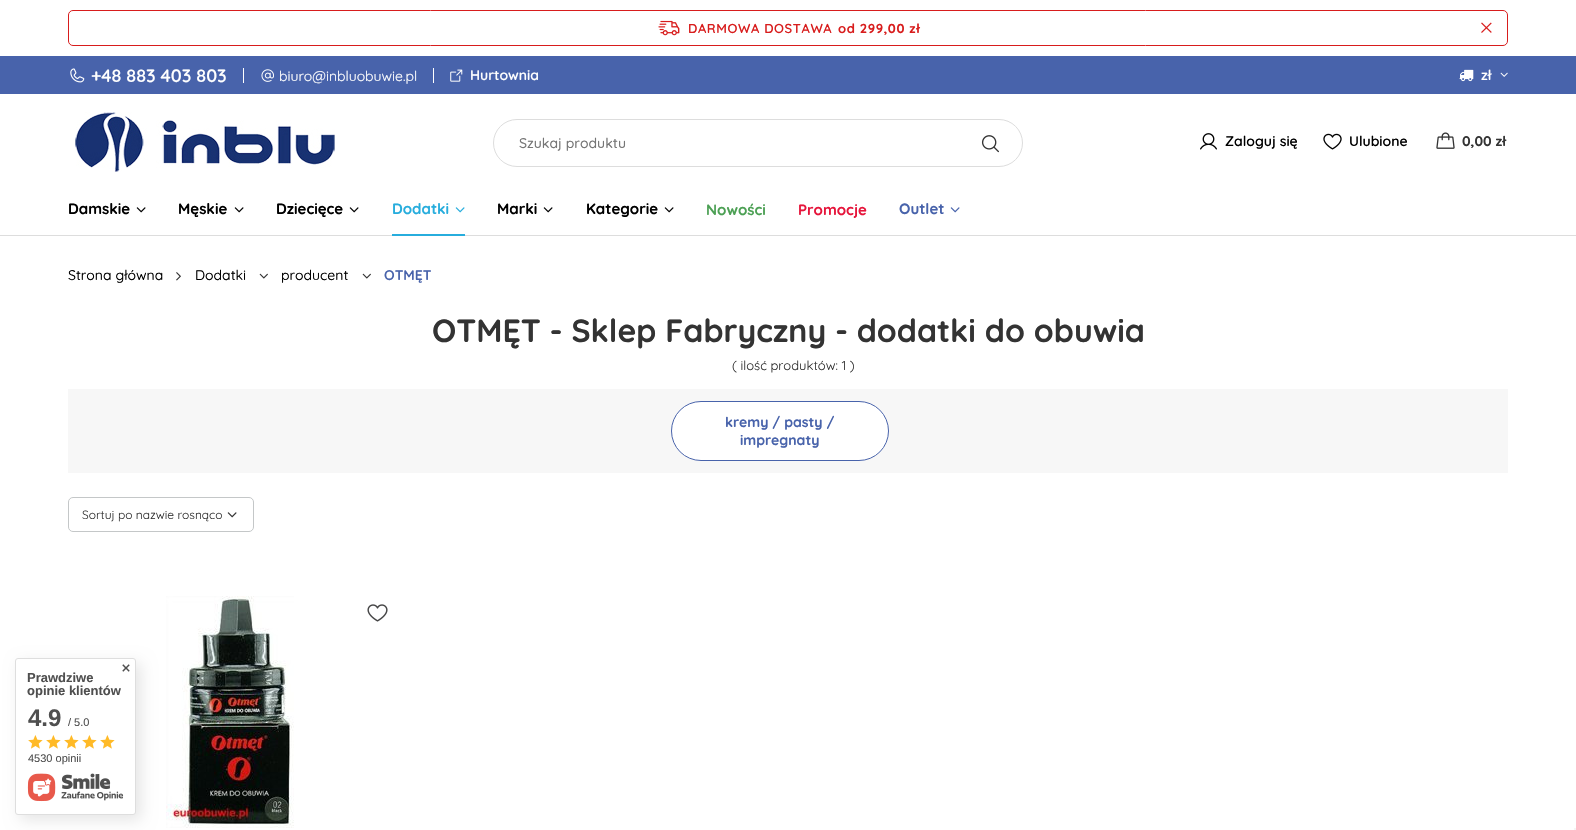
static SkFont makeFont(const char* family, int weight, float size, bool italic = false) {
  SkFontStyle style(weight, SkFontStyle::kNormal_Width,
    italic ? SkFontStyle::kItalic_Slant : SkFontStyle::kUpright_Slant);
  SkFont result(fontMgr->matchFamilyStyle(family, style), size);
  result.setSubpixel(true);
  return result;
}

static void text(SkCanvas* c, const char* s, float x, float y, const SkFont& font, SkColor color) {
  SkPaint ink(SkColor4f::FromColor(color));
  ink.setAntiAlias(true);
  c->drawString(s, x, y, font, ink);
}

static void spacedText(SkCanvas* c, const char* s, float x, float y, const SkFont& font, const SkPaint& ink, float letter, float word) {
  std::vector<SkGlyphID> glyphs(font.countText(s, strlen(s), SkTextEncoding::kUTF8));
  std::vector<float> xs(glyphs.size());
  font.textToGlyphs(s, strlen(s), SkTextEncoding::kUTF8, glyphs);
  font.getXPos(glyphs, xs, x);
  float extra = 0;
  for (size_t i = 0; i < glyphs.size(); i++) {
    xs[i] += extra;
    extra += letter + word * (glyphs[i] == font.unicharToGlyph(' '));
  }
  c->drawTextBlob(SkTextBlob::MakeFromPosHGlyphs(glyphs, xs, y, font), 0, 0, ink);
}

static void box(SkCanvas* c, float l, float t, float r, float b, SkColor color) {
  SkPaint ink(SkColor4f::FromColor(color));
  ink.setAntiAlias(true);
  c->drawRect(SkRect::MakeLTRB(l, t, r, b), ink);
}

static void picture(SkCanvas* c, const char* path, float l, float t, float r, float b) {
  auto image = SkImages::DeferredFromEncodedData(SkData::MakeFromFileName(path));
  c->drawImageRect(image, SkRect::MakeLTRB(l, t, r, b), SkSamplingOptions());
}

void draw(SkCanvas* c) {
  SkPaint paint;
  paint.setAntiAlias(true);
  c->clear(0xffffffff);
  paint.setStyle(SkPaint::kStroke_Style);
  paint.setStrokeWidth(1);
  paint.setColor(0xffd81d1d);
  c->drawRoundRect(SkRect::MakeLTRB(68.5f, 10.5f, 1507.5f, 45.5f), 4.5f, 4.5f, paint);
  picture(c, "img_01.png", 658, 20, 680, 36);
  SkFont face1 = makeFont("Quicksand", 600, 13);
  paint.setStyle(SkPaint::kFill_Style);
  spacedText(c, "DARMOWA DOSTAWA", 688, 33, face1, paint, 0.6f, 0);
  SkFont face2 = makeFont("Quicksand", 700, 13);
  spacedText(c, "od 299,00 zł", 838, 33, face2, paint, 0.6f, 0);
  picture(c, "img_02.png", 1481, 22, 1492, 33);
  box(c, 0, 56, 1576, 94, 0xff4863ab);
  box(c, 243, 68, 244, 83, 0xffffffff);
  picture(c, "img_03.png", 70, 68, 85, 83);
  SkFont face3 = makeFont("Quicksand", 600, 18);
  text(c, "+48 883 403 803", 91, 82, face3, 0xffffffff);
  box(c, 433, 68, 434, 83, 0xffffffff);
  picture(c, "img_04.png", 261, 69, 274, 82);
  SkFont face4 = makeFont("Quicksand", 400, 14);
  text(c, "biuro@inbluobuwie.pl", 279, 81, face4, 0xffffffff);
  picture(c, "img_05.png", 450, 69, 463, 82);
  SkFont face5 = makeFont("Quicksand", 600, 14);
  text(c, "Hurtownia", 470, 80, face5, 0xffffffff);
  picture(c, "img_06.png", 1459, 69, 1474, 82);
  text(c, "zł", 1481, 80, face5, 0xffffffff);
  picture(c, "img_07.png", 1500, 72, 1508, 77);
  picture(c, "img_08.png", 75, 112, 335, 172);
  paint.setStyle(SkPaint::kStroke_Style);
  paint.setColor(0xffdddddd);
  c->drawRoundRect(SkRect::MakeLTRB(493.5f, 119.5f, 1022.5f, 166.5f), 23.5f, 23.5f, paint);
  SkFont face6 = makeFont("Quicksand", 500, 14);
  text(c, "Szukaj produktu", 519, 148, face6, 0xff757575);
  picture(c, "img_09.png", 981, 135, 999, 153);
  picture(c, "img_10.png", 1200, 133, 1217, 150);
  text(c, "Zaloguj się", 1225, 146, face5, 0xff000000);
  picture(c, "img_11.png", 1323, 133, 1342, 150);
  text(c, "Ulubione", 1349, 146, face5, 0xff000000);
  picture(c, "img_12.png", 1436, 132, 1455, 149);
  SkFont face7 = makeFont("Quicksand", 700, 14);
  text(c, "0,00 zł", 1462, 146, face7, 0xff333333);
  SkFont face8 = makeFont("Quicksand", 700, 15);
  text(c, "Damskie", 68, 214, face8, 0xff000000);
  picture(c, "img_13.png", 136, 207, 146, 213);
  text(c, "Męskie", 178, 214, face8, 0xff000000);
  picture(c, "img_13.png", 234, 207, 244, 213);
  text(c, "Dziecięce", 276, 214, face8, 0xff000000);
  picture(c, "img_13.png", 349, 207, 359, 213);
  box(c, 0, 235, 1576, 236, 0xffdddddd);
  box(c, 392, 234, 465, 236, 0xff27addd);
  text(c, "Dodatki", 392, 214, face8, 0xff27addd);
  picture(c, "img_14.png", 455, 207, 465, 213);
  text(c, "Marki", 497, 214, face8, 0xff000000);
  picture(c, "img_13.png", 543, 207, 553, 213);
  text(c, "Kategorie", 586, 214, face8, 0xff000000);
  picture(c, "img_13.png", 664, 207, 674, 213);
  text(c, "Nowości", 706, 215, face8, 0xff4ca054);
  text(c, "Promocje", 798, 215, face8, 0xffe6153b);
  text(c, "Outlet", 899, 214, face8, 0xff4863ab);
  picture(c, "img_15.png", 950, 207, 960, 213);
  SkFont face9 = makeFont("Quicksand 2", 400, 14);
  text(c, "Strona główna", 68, 280, face9, 0xff000000);
  picture(c, "img_16.png", 176, 272, 181, 281);
  text(c, "Dodatki", 195, 280, face9, 0xff000000);
  picture(c, "img_17.png", 259, 273, 268, 279);
  text(c, "producent", 281, 280, face9, 0xff000000);
  picture(c, "img_17.png", 362, 273, 371, 279);
  SkFont face10 = makeFont("Quicksand 2", 600, 14);
  text(c, "OTMĘT", 384, 280, face10, 0xff4863ab);
  SkFont face11 = makeFont("Quicksand", 700, 32);
  text(c, "OTMĘT - Sklep Fabryczny - dodatki do obuwia", 432, 342, face11, 0xff333333);
  SkFont face12 = makeFont("Quicksand", 400, 13);
  text(c, "( ilość produktów: 1 )", 732, 370, face12, 0xff333333);
  box(c, 68, 389, 1508, 473, 0xfff7f7f7);
  paint.setStyle(SkPaint::kFill_Style);
  paint.setColor(0xffffffff);
  c->drawRoundRect(SkRect::MakeLTRB(671.5f, 401.5f, 888.5f, 460.5f), 29.5f, 29.5f, paint);
  paint.setStyle(SkPaint::kStroke_Style);
  paint.setColor(0xff4863ab);
  c->drawRoundRect(SkRect::MakeLTRB(671.5f, 401.5f, 888.5f, 460.5f), 29.5f, 29.5f, paint);
  text(c, "kremy / pasty /", 725, 427, face7, 0xff4863ab);
  text(c, "impregnaty", 740, 445, face7, 0xff4863ab);
  paint.setColor(0xffc4c7c8);
  c->drawRoundRect(SkRect::MakeLTRB(68.5f, 497.5f, 253.5f, 531.5f), 4.5f, 4.5f, paint);
  SkFont face13 = makeFont("Quicksand", 400, 12);
  text(c, "Sortuj po nazwie rosnąco", 82, 519, face13, 0xff333333);
  picture(c, "img_18.png", 227, 512, 237, 518);
  picture(c, "img_19.png", 166, 596, 294, 828);
  picture(c, "img_20.png", 367, 604, 388, 622);
  paint.setStyle(SkPaint::kFill_Style);
  paint.setColor(0x1a000000);
  paint.setMaskFilter(SkMaskFilter::MakeBlur(kNormal_SkBlurStyle, 7.5f));
  c->drawRoundRect(SkRect::MakeLTRB(20, 663, 141, 820), 3, 3, paint);
  paint.setMaskFilter(nullptr);
  paint.setColor(0xffffffff);
  c->drawRoundRect(SkRect::MakeLTRB(15.5f, 658.5f, 135.5f, 814.5f), 2.5f, 2.5f, paint);
  paint.setStyle(SkPaint::kStroke_Style);
  paint.setColor(0xffdedede);
  c->drawRoundRect(SkRect::MakeLTRB(15.5f, 658.5f, 135.5f, 814.5f), 2.5f, 2.5f, paint);
  picture(c, "img_21.png", 122, 664, 130, 672);
  SkFont face14 = makeFont("Liberation Sans", 700, 13);
  text(c, "Prawdziwe", 27, 682, face14, 0xff4f4f4f);
  text(c, "opinie klientów", 27, 695, face14, 0xff4f4f4f);
  SkFont face15 = makeFont("Liberation Sans", 700, 24);
  text(c, "4.9", 28, 726, face15, 0xff4f4f4f);
  SkFont face16 = makeFont("Liberation Sans", 400, 11);
  text(c, "/ 5.0", 68, 726, face16, 0xff4f4f4f);
  picture(c, "img_22.png", 28, 735, 43, 749);
  picture(c, "img_22.png", 46, 735, 61, 749);
  picture(c, "img_22.png", 64, 735, 79, 749);
  picture(c, "img_22.png", 82, 735, 97, 749);
  picture(c, "img_22.png", 100, 735, 115, 749);
  text(c, "4530 opinii", 28, 762, face16, 0xff4f4f4f);
  picture(c, "img_23.png", 27, 773, 124, 802);
  box(c, 1574, 828, 1576, 830, 0xfff5f5f5);
}
